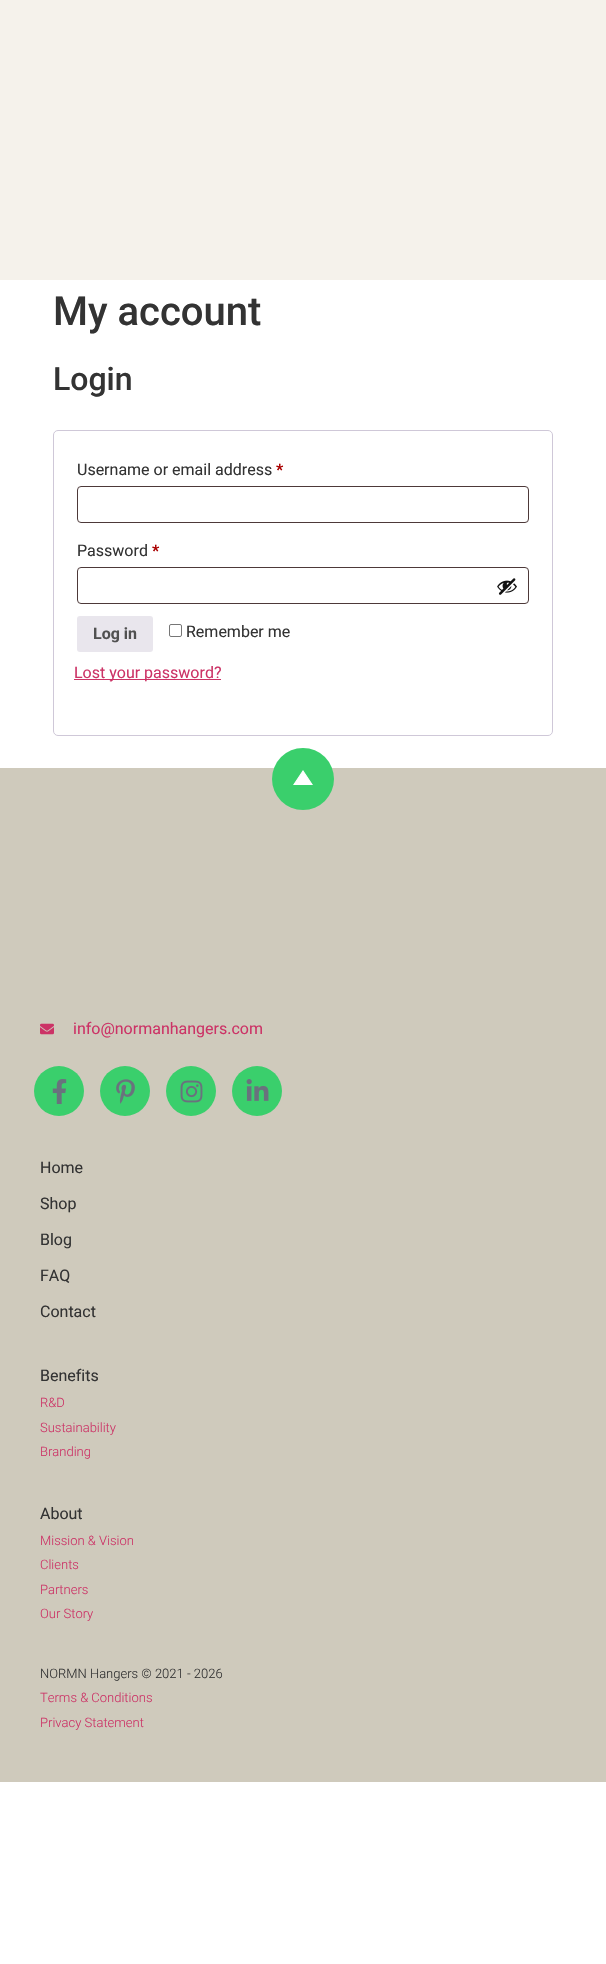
static SkFont makeFont(const char* family, int weight, float size, bool italic = false) {
  SkFontStyle style(weight, SkFontStyle::kNormal_Width,
    italic ? SkFontStyle::kItalic_Slant : SkFontStyle::kUpright_Slant);
  SkFont result(fontMgr->matchFamilyStyle(family, style), size);
  result.setSubpixel(true);
  return result;
}

static void text(SkCanvas* c, const char* s, float x, float y, const SkFont& font, SkColor color) {
  SkPaint ink(SkColor4f::FromColor(color));
  ink.setAntiAlias(true);
  c->drawString(s, x, y, font, ink);
}

static void box(SkCanvas* c, float l, float t, float r, float b, SkColor color) {
  SkPaint ink(SkColor4f::FromColor(color));
  ink.setAntiAlias(true);
  c->drawRect(SkRect::MakeLTRB(l, t, r, b), ink);
}

static void roundBox(SkCanvas* c, float l, float t, float r, float b, float radius, SkColor color) {
  SkPaint ink(SkColor4f::FromColor(color));
  ink.setAntiAlias(true);
  c->drawRoundRect(SkRect::MakeLTRB(l, t, r, b), radius, radius, ink);
}

static void picture(SkCanvas* c, const char* path, float l, float t, float r, float b) {
  auto image = SkImages::DeferredFromEncodedData(SkData::MakeFromFileName(path));
  c->drawImageRect(image, SkRect::MakeLTRB(l, t, r, b), SkSamplingOptions());
}

void draw(SkCanvas* c) {
  SkPaint paint;
  paint.setAntiAlias(true);
  c->clear(0xffffffff);
  box(c, 0, 0, 606, 280, 0xfff5f2eb);
  SkFont face1 = makeFont("Roboto", 500, 40);
  text(c, "My account", 53, 325, face1, 0xff333333);
  SkFont face2 = makeFont("Roboto", 500, 32);
  text(c, "Login", 53, 390, face2, 0xff333333);
  paint.setStyle(SkPaint::kStroke_Style);
  paint.setStrokeWidth(1);
  paint.setColor(0xffcfc8d8);
  c->drawRoundRect(SkRect::MakeLTRB(53.5f, 430.5f, 552.5f, 735.5f), 4.5f, 4.5f, paint);
  SkFont face3 = makeFont("Roboto", 400, 16);
  text(c, "Username or email address", 77, 475, face3, 0xff333333);
  SkFont face4 = makeFont("Roboto", 700, 16);
  text(c, "*", 276, 475, face4, 0xffaa0000);
  paint.setColor(0xff4d3939);
  c->drawRoundRect(SkRect::MakeLTRB(77.5f, 486.5f, 528.5f, 522.5f), 3.5f, 3.5f, paint);
  text(c, "Password", 77, 556, face3, 0xff333333);
  text(c, "*", 152, 556, face4, 0xffaa0000);
  c->drawRoundRect(SkRect::MakeLTRB(77.5f, 567.5f, 528.5f, 603.5f), 3.5f, 3.5f, paint);
  picture(c, "img_01.png", 497, 578, 517, 595);
  roundBox(c, 77, 616, 153, 652, 3, 0xffe9e6ed);
  text(c, "Log in", 93, 639, face4, 0xff515151);
  paint.setColor(0xff767676);
  c->drawRoundRect(SkRect::MakeLTRB(169.5f, 624.5f, 181.5f, 636.5f), 1.5f, 1.5f, paint);
  text(c, "Remember me", 186, 637, face3, 0xff333333);
  box(c, 74, 679, 221, 680, 0xffcc3366);
  text(c, "Lost your password?", 74, 678, face3, 0xffcc3366);
  box(c, 0, 768, 606, 1782, 0xffcfcabc);
  paint.setStyle(SkPaint::kFill_Style);
  paint.setColor(0xff3acf6c);
  c->drawCircle(303, 779, 31, paint);
  paint.setColor(0xffffffff);
  c->drawPath(SkPathBuilder().moveTo(312, 784.5f).lineTo(294, 784.5f).lineTo(303, 771).close().detach(), paint);
  c->drawPath(SkPathBuilder().moveTo(303, 772).lineTo(295, 784).lineTo(311, 784).lineTo(303, 772).moveTo(303, 770).lineTo(313, 785).lineTo(293, 785).close().detach(), paint);
  picture(c, "img_02.png", 40, 1023, 54, 1035);
  text(c, "info@normanhangers.com", 73, 1034, face3, 0xffcc3366);
  paint.setColor(0xff3acf6c);
  c->drawCircle(59, 1091, 25, paint);
  picture(c, "img_03.png", 52, 1079, 67, 1104);
  c->drawCircle(125, 1091, 25, paint);
  picture(c, "img_04.png", 116, 1079, 135, 1104);
  c->drawCircle(191, 1091, 25, paint);
  picture(c, "img_05.png", 180, 1080, 203, 1103);
  c->drawCircle(257, 1091, 25, paint);
  picture(c, "img_06.png", 246, 1079, 269, 1101);
  text(c, "Home", 40, 1173, face3, 0xff333333);
  text(c, "Shop", 40, 1209, face3, 0xff333333);
  text(c, "Blog", 40, 1245, face3, 0xff333333);
  text(c, "FAQ", 40, 1281, face3, 0xff333333);
  text(c, "Contact", 40, 1317, face3, 0xff333333);
  text(c, "Benefits", 40, 1381, face3, 0xff333333);
  SkFont face5 = makeFont("Roboto", 300, 13);
  text(c, "R&D", 40, 1407, face5, 0xffcc3366);
  text(c, "Sustainability", 40, 1432, face5, 0xffcc3366);
  text(c, "Branding", 40, 1456, face5, 0xffcc3366);
  text(c, "About", 40, 1519, face3, 0xff333333);
  text(c, "Mission & Vision", 40, 1545, face5, 0xffcc3366);
  text(c, "Clients", 40, 1569, face5, 0xffcc3366);
  text(c, "Partners", 40, 1594, face5, 0xffcc3366);
  text(c, "Our Story", 40, 1618, face5, 0xffcc3366);
  text(c, "NORMN Hangers © 2021 - 2026", 40, 1678, face5, 0xff333333);
  text(c, "Terms & Conditions", 40, 1702, face5, 0xffcc3366);
  text(c, "Privacy Statement", 40, 1727, face5, 0xffcc3366);
}
